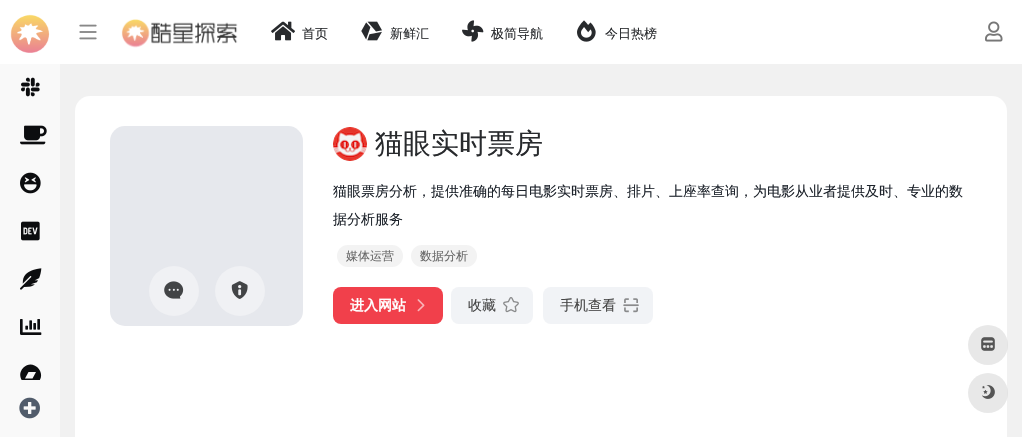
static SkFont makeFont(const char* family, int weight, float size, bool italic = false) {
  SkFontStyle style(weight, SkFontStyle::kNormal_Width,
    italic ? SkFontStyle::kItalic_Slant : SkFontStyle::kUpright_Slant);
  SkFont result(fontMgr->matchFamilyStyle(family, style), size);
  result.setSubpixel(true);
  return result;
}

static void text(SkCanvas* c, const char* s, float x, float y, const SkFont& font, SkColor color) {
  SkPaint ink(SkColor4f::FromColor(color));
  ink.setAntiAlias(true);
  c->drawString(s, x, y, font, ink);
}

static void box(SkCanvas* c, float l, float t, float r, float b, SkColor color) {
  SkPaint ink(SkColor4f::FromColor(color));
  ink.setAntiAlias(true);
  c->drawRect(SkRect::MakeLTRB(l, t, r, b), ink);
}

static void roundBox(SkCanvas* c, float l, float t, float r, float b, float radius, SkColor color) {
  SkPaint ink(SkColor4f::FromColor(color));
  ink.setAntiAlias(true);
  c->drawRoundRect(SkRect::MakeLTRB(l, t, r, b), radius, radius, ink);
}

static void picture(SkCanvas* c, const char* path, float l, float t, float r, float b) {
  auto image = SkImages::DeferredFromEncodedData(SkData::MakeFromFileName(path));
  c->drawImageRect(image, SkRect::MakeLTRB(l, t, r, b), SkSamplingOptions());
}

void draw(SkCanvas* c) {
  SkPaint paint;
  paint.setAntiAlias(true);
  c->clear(0xfff1f1f1);
  box(c, 0, 64, 60, 437, 0xfff9f9f9);
  box(c, 0, 0, 1022, 64, 0xffffffff);
  picture(c, "img_01.png", 10, 14, 50, 53);
  picture(c, "img_02.png", 21, 77, 40, 97);
  picture(c, "img_03.png", 20, 125, 47, 145);
  picture(c, "img_04.png", 20, 172, 41, 194);
  picture(c, "img_05.png", 21, 221, 40, 241);
  picture(c, "img_06.png", 20, 268, 42, 290);
  picture(c, "img_07.png", 20, 319, 42, 335);
  c->save();
  c->clipRect(SkRect::MakeLTRB(8, 354, 52, 380));
  paint.setColor(0xff0c0d0f);
  c->drawPath(SkPathBuilder().moveTo(23.5f, 367.5f).cubicTo(33, 358, 47.5f, 372.5f, 38, 382.5f).cubicTo(28.5f, 392, 13.5f, 377.5f, 23.5f, 367.5f).close().moveTo(32.5f, 378.5f).lineTo(36, 372).lineTo(28.5f, 372).lineTo(25, 378.5f).close().detach(), paint);
  c->restore();
  picture(c, "img_08.png", 19, 397, 40, 419);
  picture(c, "img_09.png", 79, 24, 97, 40);
  picture(c, "img_10.png", 121, 19, 238, 48);
  picture(c, "img_11.png", 271, 21, 295, 41);
  SkFont face1 = makeFont("WenQuanYi Zen Hei", 500, 13);
  text(c, "首页", 302, 38, face1, 0xff282a2d);
  picture(c, "img_12.png", 361, 21, 382, 41);
  text(c, "新鲜汇", 390, 38, face1, 0xff282a2d);
  picture(c, "img_13.png", 462, 20, 484, 42);
  text(c, "极简导航", 491, 38, face1, 0xff282a2d);
  picture(c, "img_14.png", 577, 20, 596, 42);
  text(c, "今日热榜", 605, 38, face1, 0xff282a2d);
  picture(c, "img_15.png", 985, 21, 1003, 42);
  roundBox(c, 75, 96, 1007, 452, 15, 0xffffffff);
  roundBox(c, 110, 126, 303, 326, 15, 0xffe6e8ed);
  paint.setColor(0xfff0f1f4);
  c->drawCircle(174, 291, 25, paint);
  picture(c, "img_16.png", 164, 281, 184, 299);
  c->drawCircle(240, 291, 25, paint);
  picture(c, "img_17.png", 231, 281, 248, 299);
  paint.setColor(0xfff2f2f2);
  c->drawCircle(350, 144, 17, paint);
  picture(c, "img_18.png", 333, 127, 367, 161);
  SkFont face2 = makeFont("WenQuanYi Zen Hei", 500, 28);
  text(c, "猫眼实时票房", 375, 153, face2, 0xff282a2d);
  SkFont face3 = makeFont("WenQuanYi Zen Hei", 500, 14);
  text(c, "猫眼票房分析，提供准确的每日电影实时票房、排片、上座率查询，为电影从业者提供及时、专业的数", 333, 196, face3, 0xff1d232b);
  text(c, "据分析服务", 333, 224, face3, 0xff1d232b);
  roundBox(c, 337, 245, 403, 267, 11, 0xfff3f3f3);
  SkFont face4 = makeFont("WenQuanYi Zen Hei", 500, 12);
  text(c, "媒体运营", 346, 260, face4, 0xff666666);
  roundBox(c, 411, 245, 477, 267, 11, 0xfff3f3f3);
  text(c, "数据分析", 420, 260, face4, 0xff666666);
  roundBox(c, 333, 287, 443, 324, 8, 0xfff1404b);
  SkFont face5 = makeFont("WenQuanYi Zen Hei", 700, 14);
  text(c, "进入网站", 350, 310, face5, 0xffffffff);
  picture(c, "img_19.png", 417, 299, 425, 312);
  roundBox(c, 451, 287, 533, 324, 8, 0xfff1f3f6);
  text(c, "收藏", 468, 310, face3, 0xff444444);
  picture(c, "img_20.png", 503, 297, 519, 313);
  roundBox(c, 543, 287, 653, 324, 8, 0xfff1f3f6);
  text(c, "手机查看", 560, 310, face3, 0xff444444);
  picture(c, "img_21.png", 623, 298, 639, 313);
  paint.setColor(0x80d2d2d2);
  c->drawCircle(988, 345, 20, paint);
  picture(c, "img_22.png", 981, 337, 995, 351);
  c->drawCircle(988, 393, 20, paint);
  picture(c, "img_23.png", 982, 385, 995, 399);
}
